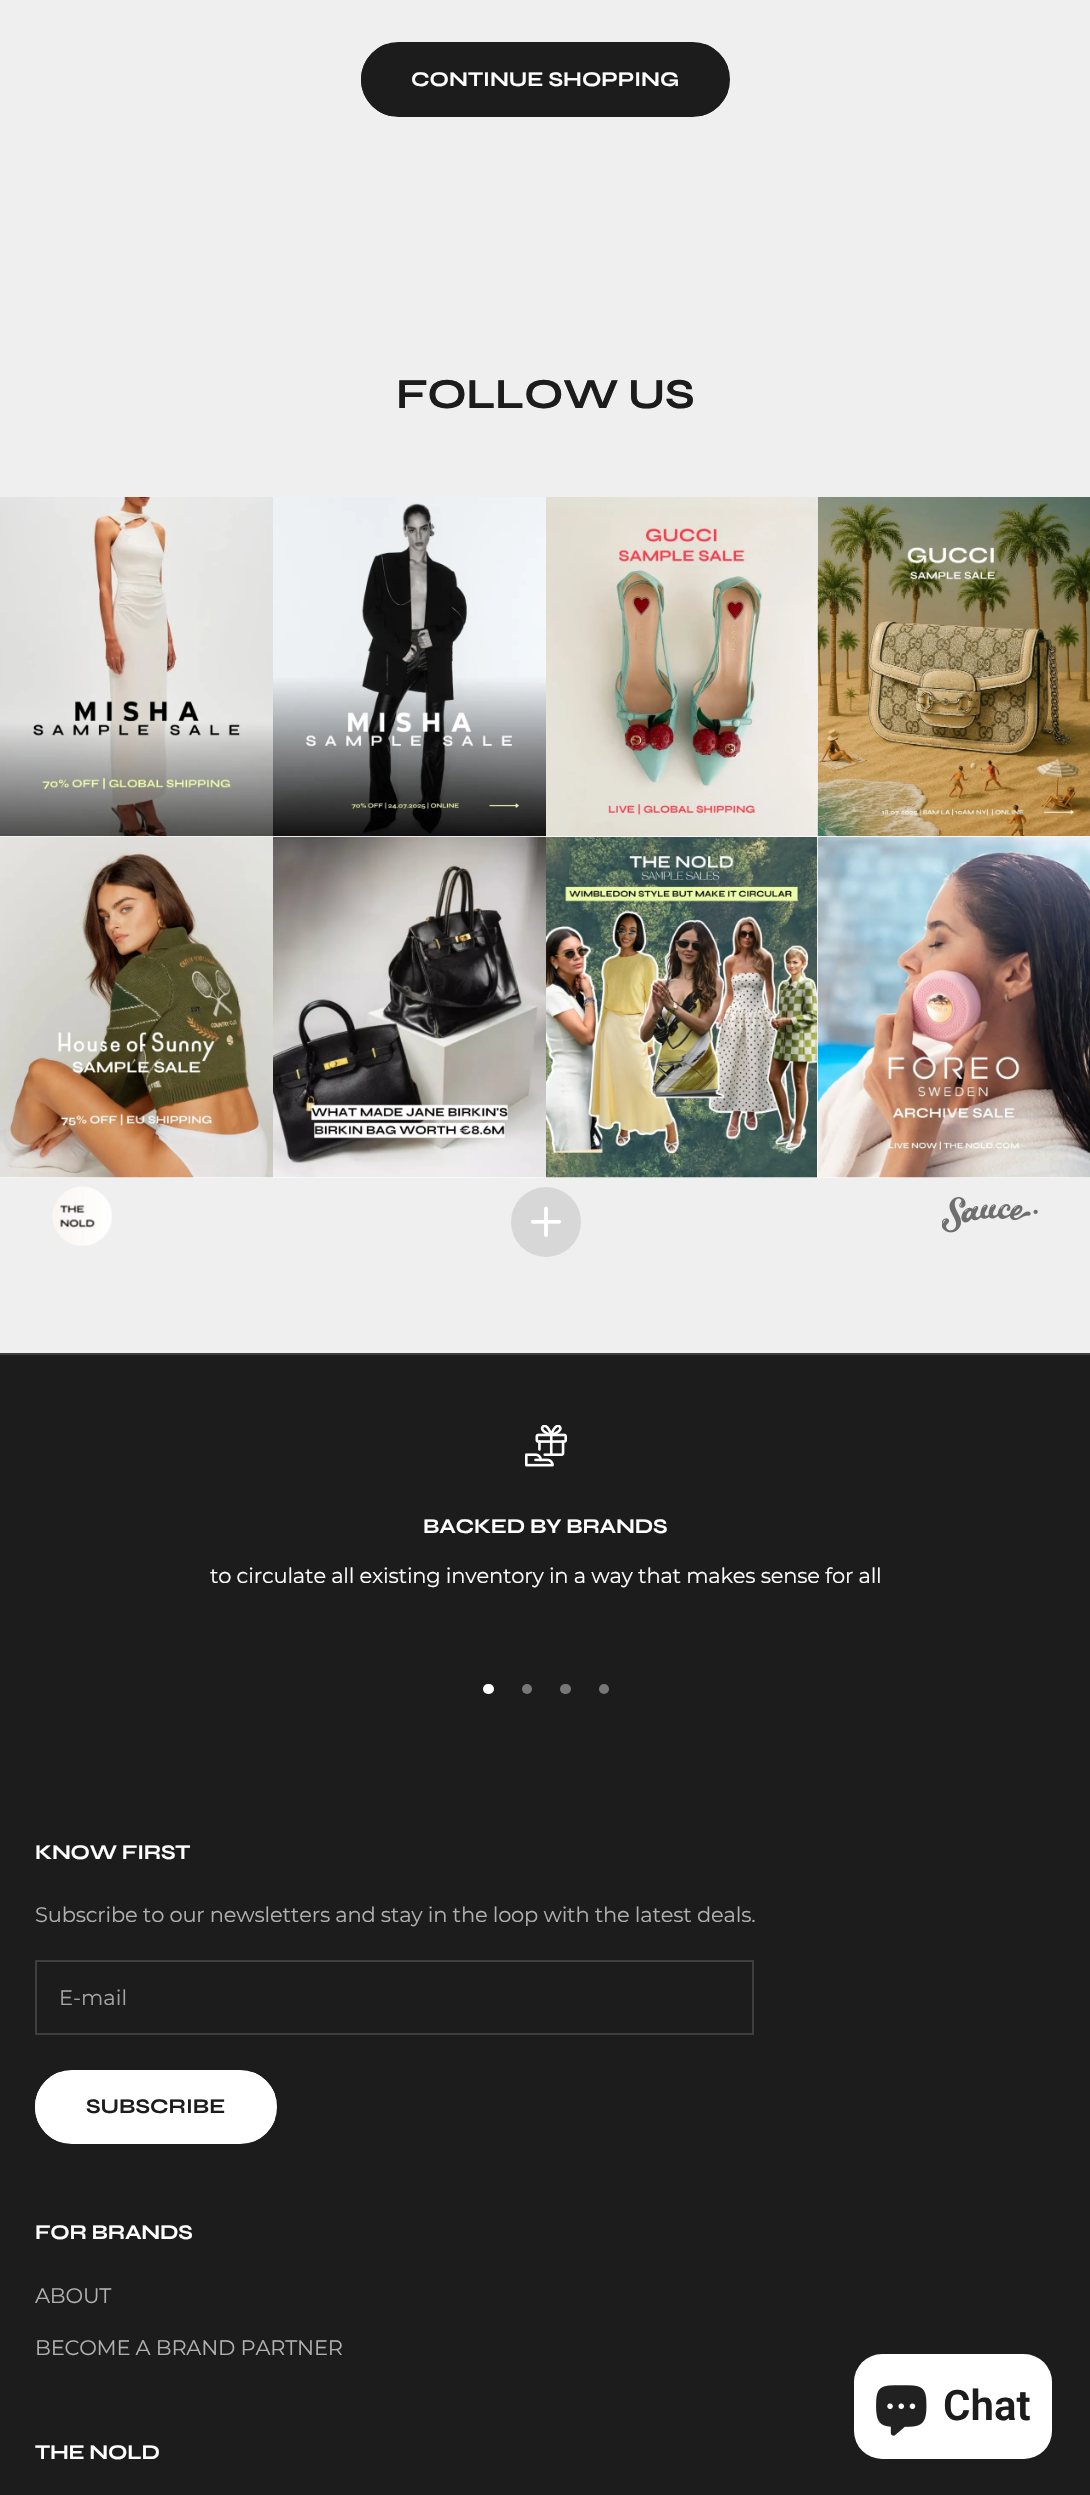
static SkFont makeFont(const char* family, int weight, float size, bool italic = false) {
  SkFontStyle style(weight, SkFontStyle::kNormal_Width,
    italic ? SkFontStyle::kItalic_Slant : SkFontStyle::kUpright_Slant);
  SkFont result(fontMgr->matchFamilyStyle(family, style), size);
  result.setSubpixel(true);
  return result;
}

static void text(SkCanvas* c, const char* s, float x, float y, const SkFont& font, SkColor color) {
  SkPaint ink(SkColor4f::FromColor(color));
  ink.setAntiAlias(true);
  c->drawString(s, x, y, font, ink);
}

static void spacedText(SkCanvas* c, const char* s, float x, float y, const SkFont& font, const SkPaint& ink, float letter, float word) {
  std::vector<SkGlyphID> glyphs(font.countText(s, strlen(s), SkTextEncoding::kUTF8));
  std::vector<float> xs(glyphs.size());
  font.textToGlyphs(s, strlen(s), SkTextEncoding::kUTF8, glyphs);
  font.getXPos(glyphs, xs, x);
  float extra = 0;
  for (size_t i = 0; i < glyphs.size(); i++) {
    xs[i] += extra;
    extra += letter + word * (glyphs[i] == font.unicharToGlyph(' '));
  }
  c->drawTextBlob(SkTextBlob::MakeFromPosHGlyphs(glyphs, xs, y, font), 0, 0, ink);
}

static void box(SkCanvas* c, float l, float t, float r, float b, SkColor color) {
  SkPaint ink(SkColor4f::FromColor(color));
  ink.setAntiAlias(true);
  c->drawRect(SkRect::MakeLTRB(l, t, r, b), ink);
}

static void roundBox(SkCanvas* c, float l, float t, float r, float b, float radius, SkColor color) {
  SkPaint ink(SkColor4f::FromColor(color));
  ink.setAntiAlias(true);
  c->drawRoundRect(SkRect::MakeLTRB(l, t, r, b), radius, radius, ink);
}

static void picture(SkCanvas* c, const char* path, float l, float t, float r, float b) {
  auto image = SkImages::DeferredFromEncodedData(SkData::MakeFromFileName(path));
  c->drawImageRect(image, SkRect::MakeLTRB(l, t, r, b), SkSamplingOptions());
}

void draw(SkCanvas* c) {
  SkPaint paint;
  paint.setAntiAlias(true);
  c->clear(0xffefefef);
  c->save();
  c->clipPath(SkPathBuilder().moveTo(398.5f, 42).lineTo(692.5f, 42).cubicTo(713, 42, 730, 59, 730, 79.5f).cubicTo(730, 100, 713, 117, 692.5f, 117).lineTo(398.5f, 117).cubicTo(378, 117, 361, 100, 361, 79.5f).cubicTo(361, 59, 378, 42, 398.5f, 42).close().detach(), true);
  box(c, 361, 44, 728, 116, 0xff1c1c1c);
  c->restore();
  paint.setStyle(SkPaint::kStroke_Style);
  paint.setStrokeWidth(2);
  paint.setColor(0xff1c1c1c);
  c->drawRoundRect(SkRect::MakeLTRB(362, 43, 729, 116), 36.5f, 36.5f, paint);
  SkFont face1 = makeFont("Syne", 700, 21);
  text(c, "CONTINUE SHOPPING", 411, 86, face1, 0xffffffff);
  SkFont face2 = makeFont("Syne", 700, 42.75f);
  paint.setStyle(SkPaint::kFill_Style);
  spacedText(c, "FOLLOW US", 396, 408, face2, paint, -0.5f, 0);
  box(c, 0, 836, 817, 837, 0xffffffff);
  picture(c, "img_01.png", 0, 497, 273, 837);
  picture(c, "img_02.png", 273, 497, 546, 837);
  picture(c, "img_03.png", 546, 497, 817, 836);
  box(c, 817, 497, 1090, 1178, 0xffffffff);
  picture(c, "img_04.png", 817, 497, 1090, 837);
  box(c, 0, 1177, 817, 1178, 0xffffffff);
  picture(c, "img_05.png", 273, 836, 546, 1178);
  picture(c, "img_06.png", 546, 836, 817, 1178);
  picture(c, "img_07.png", 0, 837, 273, 1178);
  picture(c, "img_08.png", 817, 837, 1090, 1178);
  picture(c, "img_09.png", 52, 1186, 112, 1246);
  picture(c, "img_10.png", 942, 1197, 1038, 1233);
  paint.setColor(0xffd7d7d7);
  c->drawCircle(546, 1222, 35, paint);
  picture(c, "img_11.png", 531, 1206, 561, 1237);
  box(c, 0, 1355, 1090, 2495, 0xff1c1c1c);
  box(c, 0, 1353, 1090, 1355, 0xff3e3e3e);
  picture(c, "img_12.png", 525, 1425, 567, 1467);
  paint.setColor(0xffffffff);
  spacedText(c, "BACKED BY BRANDS", 423, 1533, face1, paint, -0.2f, 0);
  SkFont face3 = makeFont("Montserrat", 400, 21);
  spacedText(c, "to circulate all existing inventory in a way that makes sense for all", 210, 1583, face3, paint, -0.2f, 0);
  roundBox(c, 483, 1684, 494, 1694, 5, 0xffffffff);
  paint.setColor(0xff777777);
  c->drawCircle(527, 1689, 5, paint);
  roundBox(c, 560, 1684, 571, 1694, 5, 0xff777777);
  c->drawCircle(604, 1689, 5, paint);
  paint.setColor(0xffffffff);
  spacedText(c, "KNOW FIRST", 35, 1859, face1, paint, -0.2f, 0);
  paint.setColor(0xffb0b0b0);
  spacedText(c, "Subscribe to our newsletters and stay in the loop with the latest deals.", 35, 1922, face3, paint, -0.2f, 0);
  paint.setStyle(SkPaint::kStroke_Style);
  paint.setColor(0xff3e3e3e);
  c->drawRect(SkRect::MakeLTRB(36, 1961, 753, 2034), paint);
  text(c, "E-mail", 59, 2005, face3, 0xffa4a4a4);
  c->save();
  c->clipPath(SkPathBuilder().moveTo(72, 2070).lineTo(240, 2070).cubicTo(260.5f, 2070, 277, 2086.5f, 277, 2107).cubicTo(277, 2127.5f, 260.5f, 2144, 240, 2144).lineTo(72, 2144).cubicTo(51.5f, 2144, 35, 2127.5f, 35, 2107).cubicTo(35, 2086.5f, 51.5f, 2070, 72, 2070).close().detach(), true);
  box(c, 35, 2072, 275, 2142, 0xffffffff);
  c->restore();
  paint.setColor(0xffffffff);
  c->drawRoundRect(SkRect::MakeLTRB(36, 2071, 276, 2143), 36, 36, paint);
  text(c, "SUBSCRIBE", 86, 2113, face1, 0xff1c1c1c);
  paint.setStyle(SkPaint::kFill_Style);
  spacedText(c, "FOR BRANDS", 35, 2239, face1, paint, -0.2f, 0);
  paint.setColor(0xffb0b0b0);
  spacedText(c, "ABOUT", 35, 2303, face3, paint, -0.2f, 0);
  spacedText(c, "BECOME A BRAND PARTNER", 35, 2355, face3, paint, -0.2f, 0);
  paint.setColor(0xffffffff);
  spacedText(c, "THE NOLD", 35, 2459, face1, paint, -0.2f, 0);
  roundBox(c, 854, 2354, 1052, 2459, 28, 0xffffffff);
  picture(c, "img_13.png", 876, 2385, 927, 2436);
  SkFont face4 = makeFont("Roboto", 600, 42);
  text(c, "Chat", 943, 2420, face4, 0xff1c1c1c);
}
